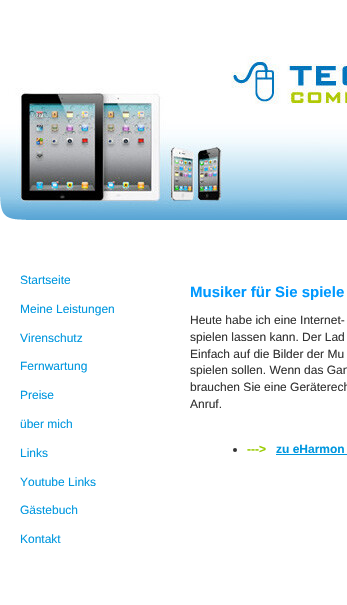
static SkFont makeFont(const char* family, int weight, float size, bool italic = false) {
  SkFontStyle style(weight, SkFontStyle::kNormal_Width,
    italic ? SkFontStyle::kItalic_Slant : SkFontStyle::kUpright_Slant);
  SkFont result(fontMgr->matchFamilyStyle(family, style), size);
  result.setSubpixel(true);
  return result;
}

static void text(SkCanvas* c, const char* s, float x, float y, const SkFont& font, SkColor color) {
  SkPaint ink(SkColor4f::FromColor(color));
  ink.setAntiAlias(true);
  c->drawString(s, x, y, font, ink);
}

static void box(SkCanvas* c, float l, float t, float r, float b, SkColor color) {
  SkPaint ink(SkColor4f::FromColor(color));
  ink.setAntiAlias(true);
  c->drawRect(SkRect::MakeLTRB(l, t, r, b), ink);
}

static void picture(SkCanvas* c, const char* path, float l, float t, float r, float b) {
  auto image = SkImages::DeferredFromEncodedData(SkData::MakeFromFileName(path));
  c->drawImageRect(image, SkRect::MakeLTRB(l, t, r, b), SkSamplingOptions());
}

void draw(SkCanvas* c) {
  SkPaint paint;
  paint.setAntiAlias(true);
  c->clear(0xffffffff);
  picture(c, "img_01.png", 0, 0, 347, 220);
  picture(c, "img_02.png", 0, 197, 26, 220);
  SkFont face1 = makeFont("Liberation Sans", 400, 12);
  text(c, "Startseite", 20, 284, face1, 0xff0097df);
  text(c, "Meine Leistungen", 20, 313, face1, 0xff0097df);
  text(c, "Virenschutz", 20, 342, face1, 0xff0097df);
  text(c, "Fernwartung", 20, 370, face1, 0xff0097df);
  text(c, "Preise", 20, 399, face1, 0xff0097df);
  text(c, "über mich", 20, 428, face1, 0xff0097df);
  text(c, "Links", 20, 457, face1, 0xff0097df);
  text(c, "Youtube Links", 20, 486, face1, 0xff0097df);
  text(c, "Gästebuch", 20, 514, face1, 0xff0097df);
  text(c, "Kontakt", 20, 543, face1, 0xff0097df);
  SkFont face2 = makeFont("Liberation Sans", 700, 15);
  text(c, "Musiker für Sie spiele", 190, 297, face2, 0xff0099ff);
  text(c, "Heute habe ich eine Internet-", 190, 324, face1, 0xff333333);
  text(c, "spielen lassen kann. Der Lad", 190, 341, face1, 0xff333333);
  text(c, "Einfach auf die Bilder der Mu", 190, 358, face1, 0xff333333);
  text(c, "spielen sollen. Wenn das Gan", 190, 374, face1, 0xff333333);
  text(c, "brauchen Sie eine Geräterech", 190, 391, face1, 0xff333333);
  text(c, "Anruf.", 190, 408, face1, 0xff333333);
  paint.setColor(0xff333333);
  c->drawCircle(235, 450, 2, paint);
  SkFont face3 = makeFont("Liberation Sans", 700, 12);
  text(c, "--->", 247, 453, face3, 0xff99cc00);
  text(c, "zu eHarmon", 276, 453, face3, 0xff0097df);
  box(c, 276, 454, 347, 455, 0xff0097df);
}
